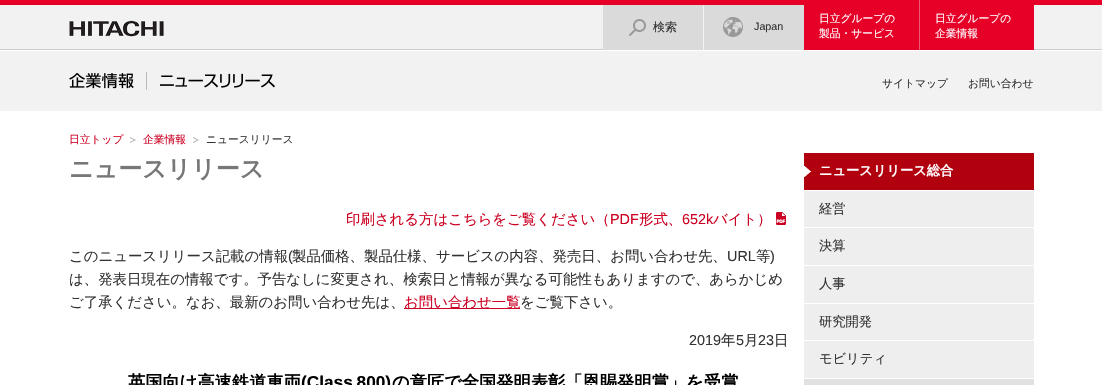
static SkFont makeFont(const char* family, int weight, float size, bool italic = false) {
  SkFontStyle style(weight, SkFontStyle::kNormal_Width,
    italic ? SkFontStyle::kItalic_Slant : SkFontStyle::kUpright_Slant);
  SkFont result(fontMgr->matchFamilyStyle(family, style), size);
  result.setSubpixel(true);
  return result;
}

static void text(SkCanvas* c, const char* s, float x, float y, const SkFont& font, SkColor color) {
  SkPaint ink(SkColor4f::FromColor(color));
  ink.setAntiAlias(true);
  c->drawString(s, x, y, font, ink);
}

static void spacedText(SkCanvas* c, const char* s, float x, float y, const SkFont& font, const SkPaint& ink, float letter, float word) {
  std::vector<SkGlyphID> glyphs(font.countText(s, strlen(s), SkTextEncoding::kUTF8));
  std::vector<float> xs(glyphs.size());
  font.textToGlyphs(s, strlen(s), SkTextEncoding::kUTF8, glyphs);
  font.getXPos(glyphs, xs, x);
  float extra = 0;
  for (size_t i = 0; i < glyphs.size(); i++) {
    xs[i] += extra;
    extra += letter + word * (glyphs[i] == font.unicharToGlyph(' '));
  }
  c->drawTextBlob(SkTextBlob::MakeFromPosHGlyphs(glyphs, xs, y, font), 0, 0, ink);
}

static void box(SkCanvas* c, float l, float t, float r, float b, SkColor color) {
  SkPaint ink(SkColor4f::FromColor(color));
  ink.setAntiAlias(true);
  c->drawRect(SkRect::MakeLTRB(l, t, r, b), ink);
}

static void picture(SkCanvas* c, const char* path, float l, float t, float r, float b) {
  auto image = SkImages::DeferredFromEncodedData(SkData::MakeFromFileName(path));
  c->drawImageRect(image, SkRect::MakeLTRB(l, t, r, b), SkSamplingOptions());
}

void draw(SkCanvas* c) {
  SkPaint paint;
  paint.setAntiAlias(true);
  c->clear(0xfff2f2f2);
  box(c, 0, 0, 1102, 5, 0xffe60027);
  picture(c, "img_01.png", 69, 20, 164, 37);
  box(c, 0, 49, 1102, 50, 0xffcccccc);
  box(c, 603, 5, 703, 50, 0xffdadada);
  box(c, 703, 49, 704, 50, 0xfff2f2f2);
  picture(c, "img_02.png", 629, 19, 646, 36);
  SkFont face1 = makeFont("WenQuanYi Zen Hei", 500, 12);
  text(c, "検索", 653, 31, face1, 0xff333333);
  box(c, 704, 5, 804, 50, 0xffdadada);
  picture(c, "img_03.png", 723, 17, 743, 37);
  SkFont face2 = makeFont("Liberation Sans", 400, 10.75f);
  text(c, "Japan", 754, 30, face2, 0xff333333);
  box(c, 804, 5, 919, 50, 0xffe60027);
  SkFont face3 = makeFont("WenQuanYi Zen Hei", 500, 10.75f);
  text(c, "日立グループの", 819, 22, face3, 0xffffffff);
  text(c, "製品・サービス", 819, 37, face3, 0xffffffff);
  box(c, 920, 5, 1034, 50, 0xffe60027);
  box(c, 919, 0, 920, 50, 0xffeb5b74);
  text(c, "日立グループの", 935, 22, face3, 0xffffffff);
  text(c, "企業情報", 935, 37, face3, 0xffffffff);
  box(c, 0, 50, 1102, 51, 0xffffffff);
  picture(c, "img_04.png", 69, 73, 134, 89);
  box(c, 146, 72, 147, 90, 0xffbbbbbb);
  picture(c, "img_05.png", 160, 73, 275, 88);
  text(c, "サイトマップ", 882, 87, face3, 0xff333333);
  text(c, "お問い合わせ", 968, 87, face3, 0xff333333);
  box(c, 0, 111, 1102, 385, 0xffffffff);
  text(c, "日立トップ", 69, 143, face3, 0xffcc0022);
  picture(c, "img_06.png", 130, 137, 136, 143);
  text(c, "企業情報", 143, 143, face3, 0xffcc0022);
  picture(c, "img_06.png", 193, 137, 199, 143);
  text(c, "ニュースリリース", 206, 143, face3, 0xff333333);
  SkFont face4 = makeFont("WenQuanYi Zen Hei", 700, 24);
  text(c, "ニュースリリース", 69, 177, face4, 0xff777777);
  SkFont face5 = makeFont("WenQuanYi Zen Hei", 500, 14.4f);
  text(c, "印刷される方はこちらをご覧ください（", 346, 224, face5, 0xffcc0022);
  SkFont face6 = makeFont("Liberation Sans", 400, 14.4f);
  text(c, "PDF", 610, 224, face6, 0xffcc0022);
  text(c, "形式、", 639, 224, face5, 0xffcc0022);
  text(c, "652k", 682, 224, face6, 0xffcc0022);
  text(c, "バイト）", 713, 224, face5, 0xffcc0022);
  picture(c, "img_07.png", 776, 212, 786, 225);
  text(c, "このニュースリリース記載の情報", 69, 261, face5, 0xff333333);
  text(c, "(", 288, 261, face6, 0xff333333);
  text(c, "製品価格、製品仕様、サービスの内容、発売日、お問い合わせ先、", 292, 261, face5, 0xff333333);
  text(c, "URL", 727, 261, face6, 0xff333333);
  text(c, "等", 756, 261, face5, 0xff333333);
  text(c, ")", 770, 261, face6, 0xff333333);
  text(c, "は、発表日現在の情報です。予告なしに変更され、検索日と情報が異なる可能性もありますので、あらかじめ", 69, 284, face5, 0xff333333);
  text(c, "ご了承ください。なお、最新のお問い合わせ先は、", 69, 307, face5, 0xff333333);
  box(c, 404, 308, 520, 309, 0xffcc0022);
  text(c, "お問い合わせ一覧", 404, 307, face5, 0xffcc0022);
  text(c, "をご覧下さい。", 520, 307, face5, 0xff333333);
  text(c, "2019", 689, 345, face6, 0xff333333);
  text(c, "年", 721, 345, face5, 0xff333333);
  text(c, "5", 736, 345, face6, 0xff333333);
  text(c, "月", 744, 345, face5, 0xff333333);
  text(c, "23", 758, 345, face6, 0xff333333);
  text(c, "日", 774, 345, face5, 0xff333333);
  SkFont face7 = makeFont("WenQuanYi Zen Hei", 700, 17.25f);
  text(c, "英国向け高速鉄道車両", 128, 388, face7, 0xff000000);
  SkFont face8 = makeFont("Liberation Sans", 700, 17.25f);
  paint.setColor(0xff000000);
  spacedText(c, "(Class 800)", 301, 388, face8, paint, 0, -1);
  text(c, "の意匠で全国発明表彰「恩賜発明賞」を受賞", 392, 388, face7, 0xff000000);
  box(c, 804, 153, 1034, 190, 0xffb1000e);
  picture(c, "img_08.png", 804, 166, 811, 177);
  SkFont face9 = makeFont("WenQuanYi Zen Hei", 700, 13.25f);
  text(c, "ニュースリリース総合", 819, 175, face9, 0xffffffff);
  box(c, 804, 191, 1034, 227, 0xffeeeeee);
  SkFont face10 = makeFont("WenQuanYi Zen Hei", 500, 13.25f);
  text(c, "経営", 819, 213, face10, 0xff333333);
  box(c, 804, 228, 1034, 265, 0xffeeeeee);
  text(c, "決算", 819, 250, face10, 0xff333333);
  box(c, 804, 266, 1034, 303, 0xffeeeeee);
  text(c, "人事", 819, 288, face10, 0xff333333);
  box(c, 804, 304, 1034, 340, 0xffeeeeee);
  text(c, "研究開発", 819, 326, face10, 0xff333333);
  box(c, 804, 341, 1034, 378, 0xffeeeeee);
  text(c, "モビリティ", 819, 363, face10, 0xff333333);
  box(c, 804, 379, 1034, 385, 0xffe1e1e1);
}
